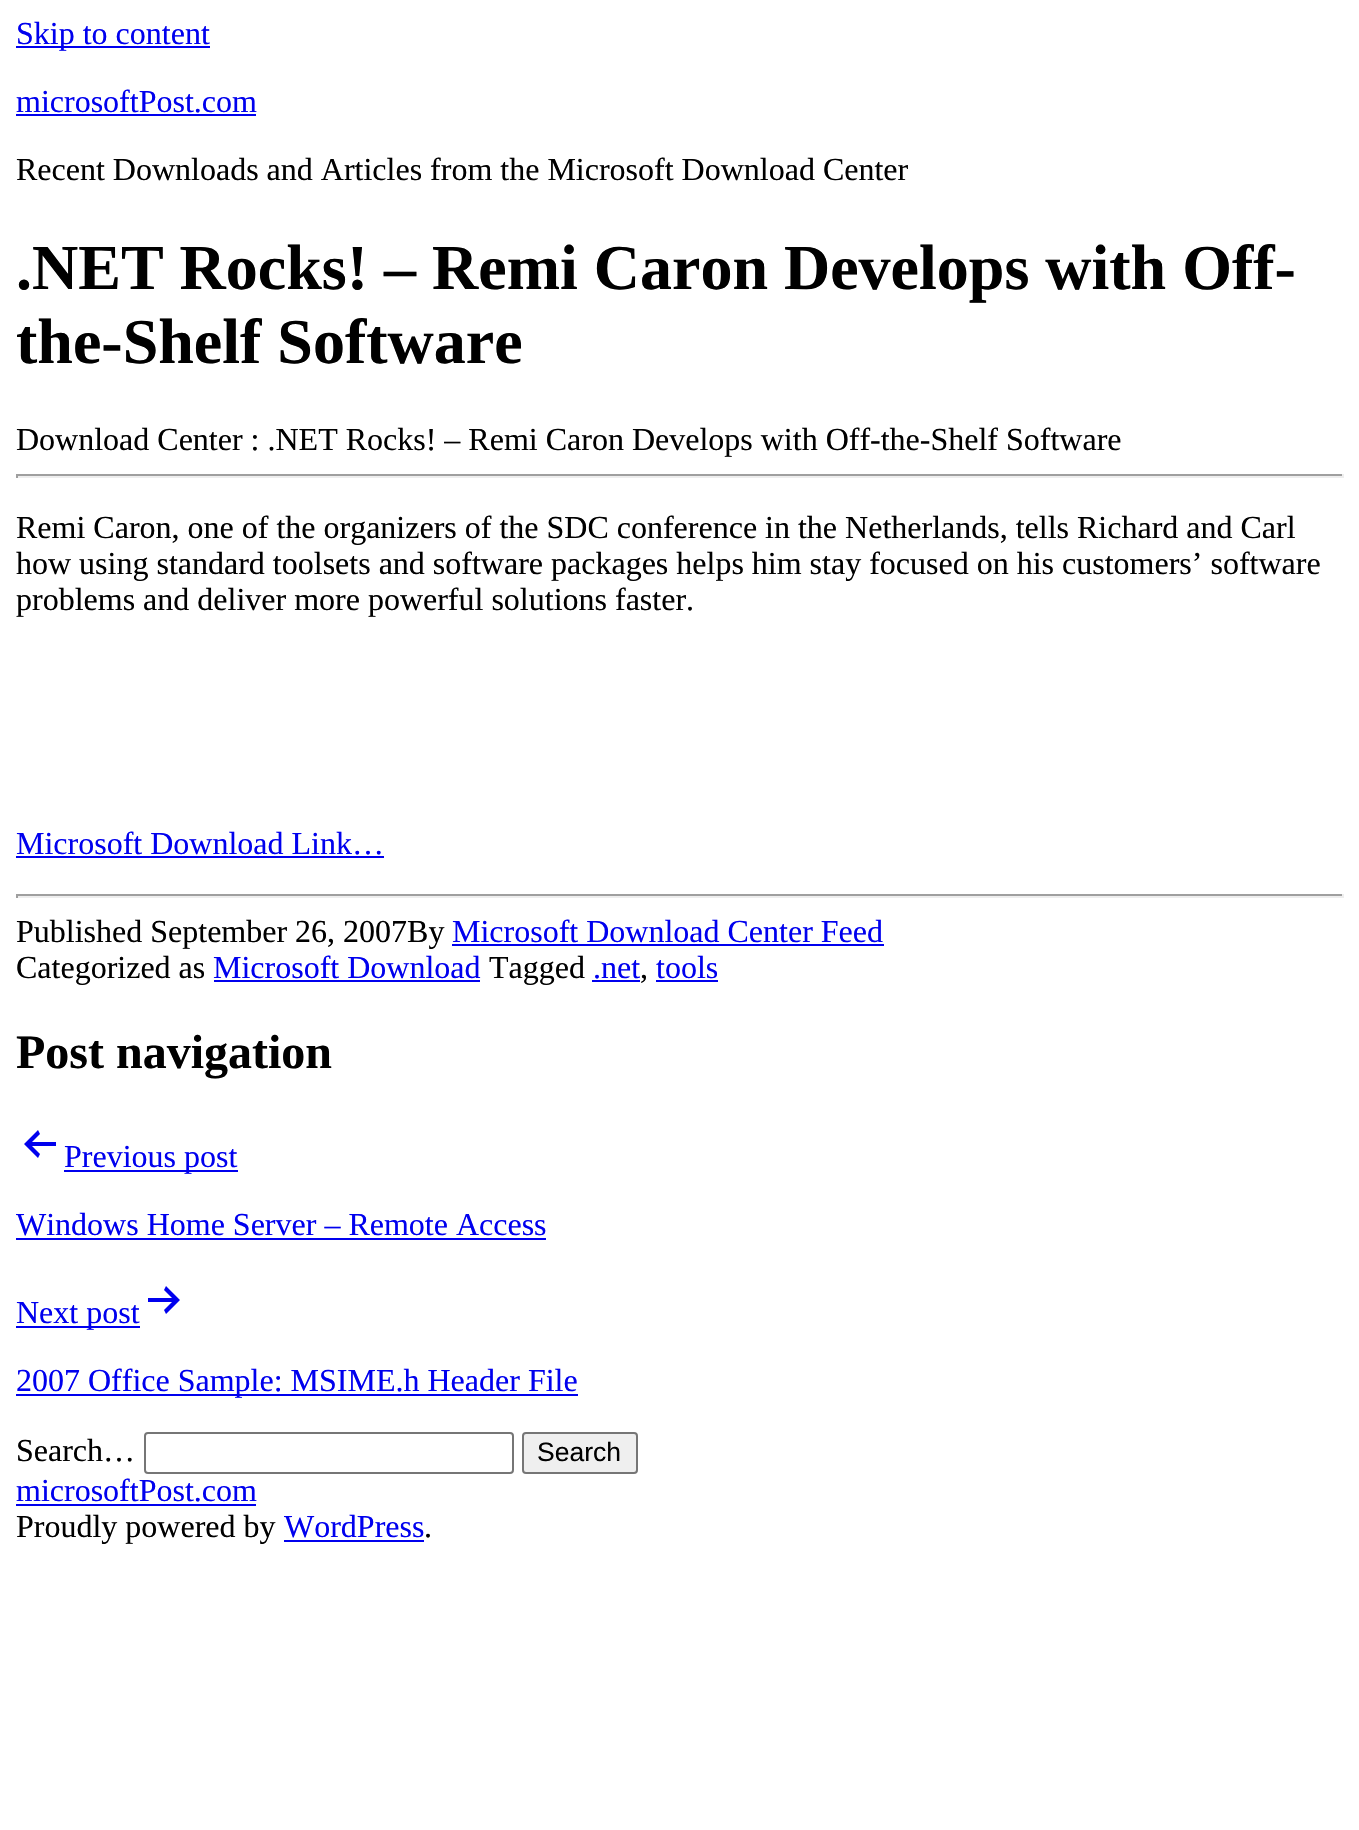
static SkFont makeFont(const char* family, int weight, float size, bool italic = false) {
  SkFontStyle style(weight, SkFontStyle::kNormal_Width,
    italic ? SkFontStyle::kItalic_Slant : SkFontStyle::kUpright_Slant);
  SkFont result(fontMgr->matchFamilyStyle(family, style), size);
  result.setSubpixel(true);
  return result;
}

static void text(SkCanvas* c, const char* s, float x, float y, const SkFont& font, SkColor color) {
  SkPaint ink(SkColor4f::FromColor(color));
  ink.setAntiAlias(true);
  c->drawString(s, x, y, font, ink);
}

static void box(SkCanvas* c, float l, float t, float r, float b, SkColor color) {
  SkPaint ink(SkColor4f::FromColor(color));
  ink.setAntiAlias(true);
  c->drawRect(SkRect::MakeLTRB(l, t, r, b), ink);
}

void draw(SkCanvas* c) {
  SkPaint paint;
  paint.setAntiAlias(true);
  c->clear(0xffffffff);
  box(c, 16, 46, 210, 48, 0xff0000ee);
  SkFont face1 = makeFont("Liberation Serif", 400, 32);
  text(c, "Skip to content", 16, 44, face1, 0xff0000ee);
  text(c, "microsoftPost.com", 16, 112, face1, 0xff0000ee);
  box(c, 16, 114, 256, 116, 0xff0000ee);
  text(c, "Recent Downloads and Articles from the Microsoft Download Center", 16, 180, face1, 0xff000000);
  SkFont face2 = makeFont("Liberation Serif", 700, 64);
  text(c, ".NET Rocks! – Remi Caron Develops with Off-", 16, 289, face2, 0xff000000);
  text(c, "the-Shelf Software", 16, 363, face2, 0xff000000);
  text(c, "Download Center : .NET Rocks! – Remi Caron Develops with Off-the-Shelf Software", 16, 450, face1, 0xff000000);
  box(c, 16, 474, 1344, 476, 0xff9f9f9f);
  box(c, 1342, 474, 1344, 478, 0xffeeeeee);
  box(c, 16, 476, 1344, 478, 0xffeeeeee);
  box(c, 16, 474, 18, 478, 0xff9f9f9f);
  text(c, "Remi Caron, one of the organizers of the SDC conference in the Netherlands, tells Richard and Carl", 16, 538, face1, 0xff000000);
  text(c, "how using standard toolsets and software packages helps him stay focused on his customers’ software", 16, 574, face1, 0xff000000);
  text(c, "problems and deliver more powerful solutions faster.", 16, 610, face1, 0xff000000);
  text(c, "Microsoft Download Link…", 16, 854, face1, 0xff0000ee);
  box(c, 16, 856, 384, 858, 0xff0000ee);
  box(c, 16, 894, 1344, 896, 0xff9f9f9f);
  box(c, 1342, 894, 1344, 898, 0xffeeeeee);
  box(c, 16, 896, 1344, 898, 0xffeeeeee);
  box(c, 16, 894, 18, 898, 0xff9f9f9f);
  text(c, "Published September 26, 2007By", 16, 942, face1, 0xff000000);
  text(c, "Microsoft Download Center Feed", 452, 942, face1, 0xff0000ee);
  box(c, 452, 944, 884, 946, 0xff0000ee);
  text(c, "Categorized as", 16, 978, face1, 0xff000000);
  text(c, "Microsoft Download", 213, 978, face1, 0xff0000ee);
  box(c, 214, 980, 480, 982, 0xff0000ee);
  text(c, "Tagged", 489, 978, face1, 0xff000000);
  text(c, ".net", 593, 978, face1, 0xff0000ee);
  text(c, ",", 640, 978, face1, 0xff000000);
  box(c, 592, 980, 640, 982, 0xff0000ee);
  box(c, 656, 980, 718, 982, 0xff0000ee);
  text(c, "tools", 656, 978, face1, 0xff0000ee);
  SkFont face3 = makeFont("Liberation Serif", 700, 48);
  text(c, "Post navigation", 16, 1068, face3, 0xff000000);
  paint.setColor(0xff0000ee);
  c->drawPath(SkPathBuilder(SkPathFillType::kEvenOdd).moveTo(56, 1146).lineTo(56, 1142).lineTo(32, 1142).lineTo(40, 1134).lineTo(38, 1130).lineTo(24, 1144).lineTo(38, 1158).lineTo(40, 1154).lineTo(32, 1146).close().detach(), paint);
  box(c, 64, 1170, 238, 1172, 0xff0000ee);
  text(c, "Previous post", 64, 1167, face1, 0xff0000ee);
  text(c, "Windows Home Server – Remote Access", 16, 1235, face1, 0xff0000ee);
  box(c, 16, 1238, 546, 1240, 0xff0000ee);
  box(c, 16, 1326, 140, 1328, 0xff0000ee);
  text(c, "Next post", 16, 1323, face1, 0xff0000ee);
  c->drawPath(SkPathBuilder(SkPathFillType::kEvenOdd).moveTo(148, 1302).lineTo(148, 1298).lineTo(172, 1298).lineTo(164, 1290).lineTo(166, 1286).lineTo(180, 1300).lineTo(166, 1314).lineTo(164, 1310).lineTo(172, 1302).close().detach(), paint);
  box(c, 16, 1394, 578, 1396, 0xff0000ee);
  text(c, "2007 Office Sample: MSIME.h Header File", 16, 1391, face1, 0xff0000ee);
  text(c, "Search…", 16, 1461, face1, 0xff000000);
  paint.setStyle(SkPaint::kStroke_Style);
  paint.setStrokeWidth(2);
  paint.setColor(0xff767676);
  c->drawRoundRect(SkRect::MakeLTRB(145, 1433, 513, 1473), 3, 3, paint);
  paint.setStyle(SkPaint::kFill_Style);
  paint.setColor(0xffefefef);
  c->drawRoundRect(SkRect::MakeLTRB(523, 1433, 637, 1473), 3, 3, paint);
  paint.setStyle(SkPaint::kStroke_Style);
  paint.setColor(0xff767676);
  c->drawRoundRect(SkRect::MakeLTRB(523, 1433, 637, 1473), 3, 3, paint);
  SkFont face4 = makeFont("Liberation Sans", 400, 26.5f);
  text(c, "Search", 537, 1461, face4, 0xff000000);
  text(c, "microsoftPost.com", 16, 1501, face1, 0xff0000ee);
  box(c, 16, 1504, 256, 1506, 0xff0000ee);
  text(c, "Proudly powered by", 16, 1537, face1, 0xff000000);
  text(c, "WordPress", 284, 1537, face1, 0xff0000ee);
  box(c, 284, 1540, 424, 1542, 0xff0000ee);
  text(c, ".", 424, 1537, face1, 0xff000000);
}
